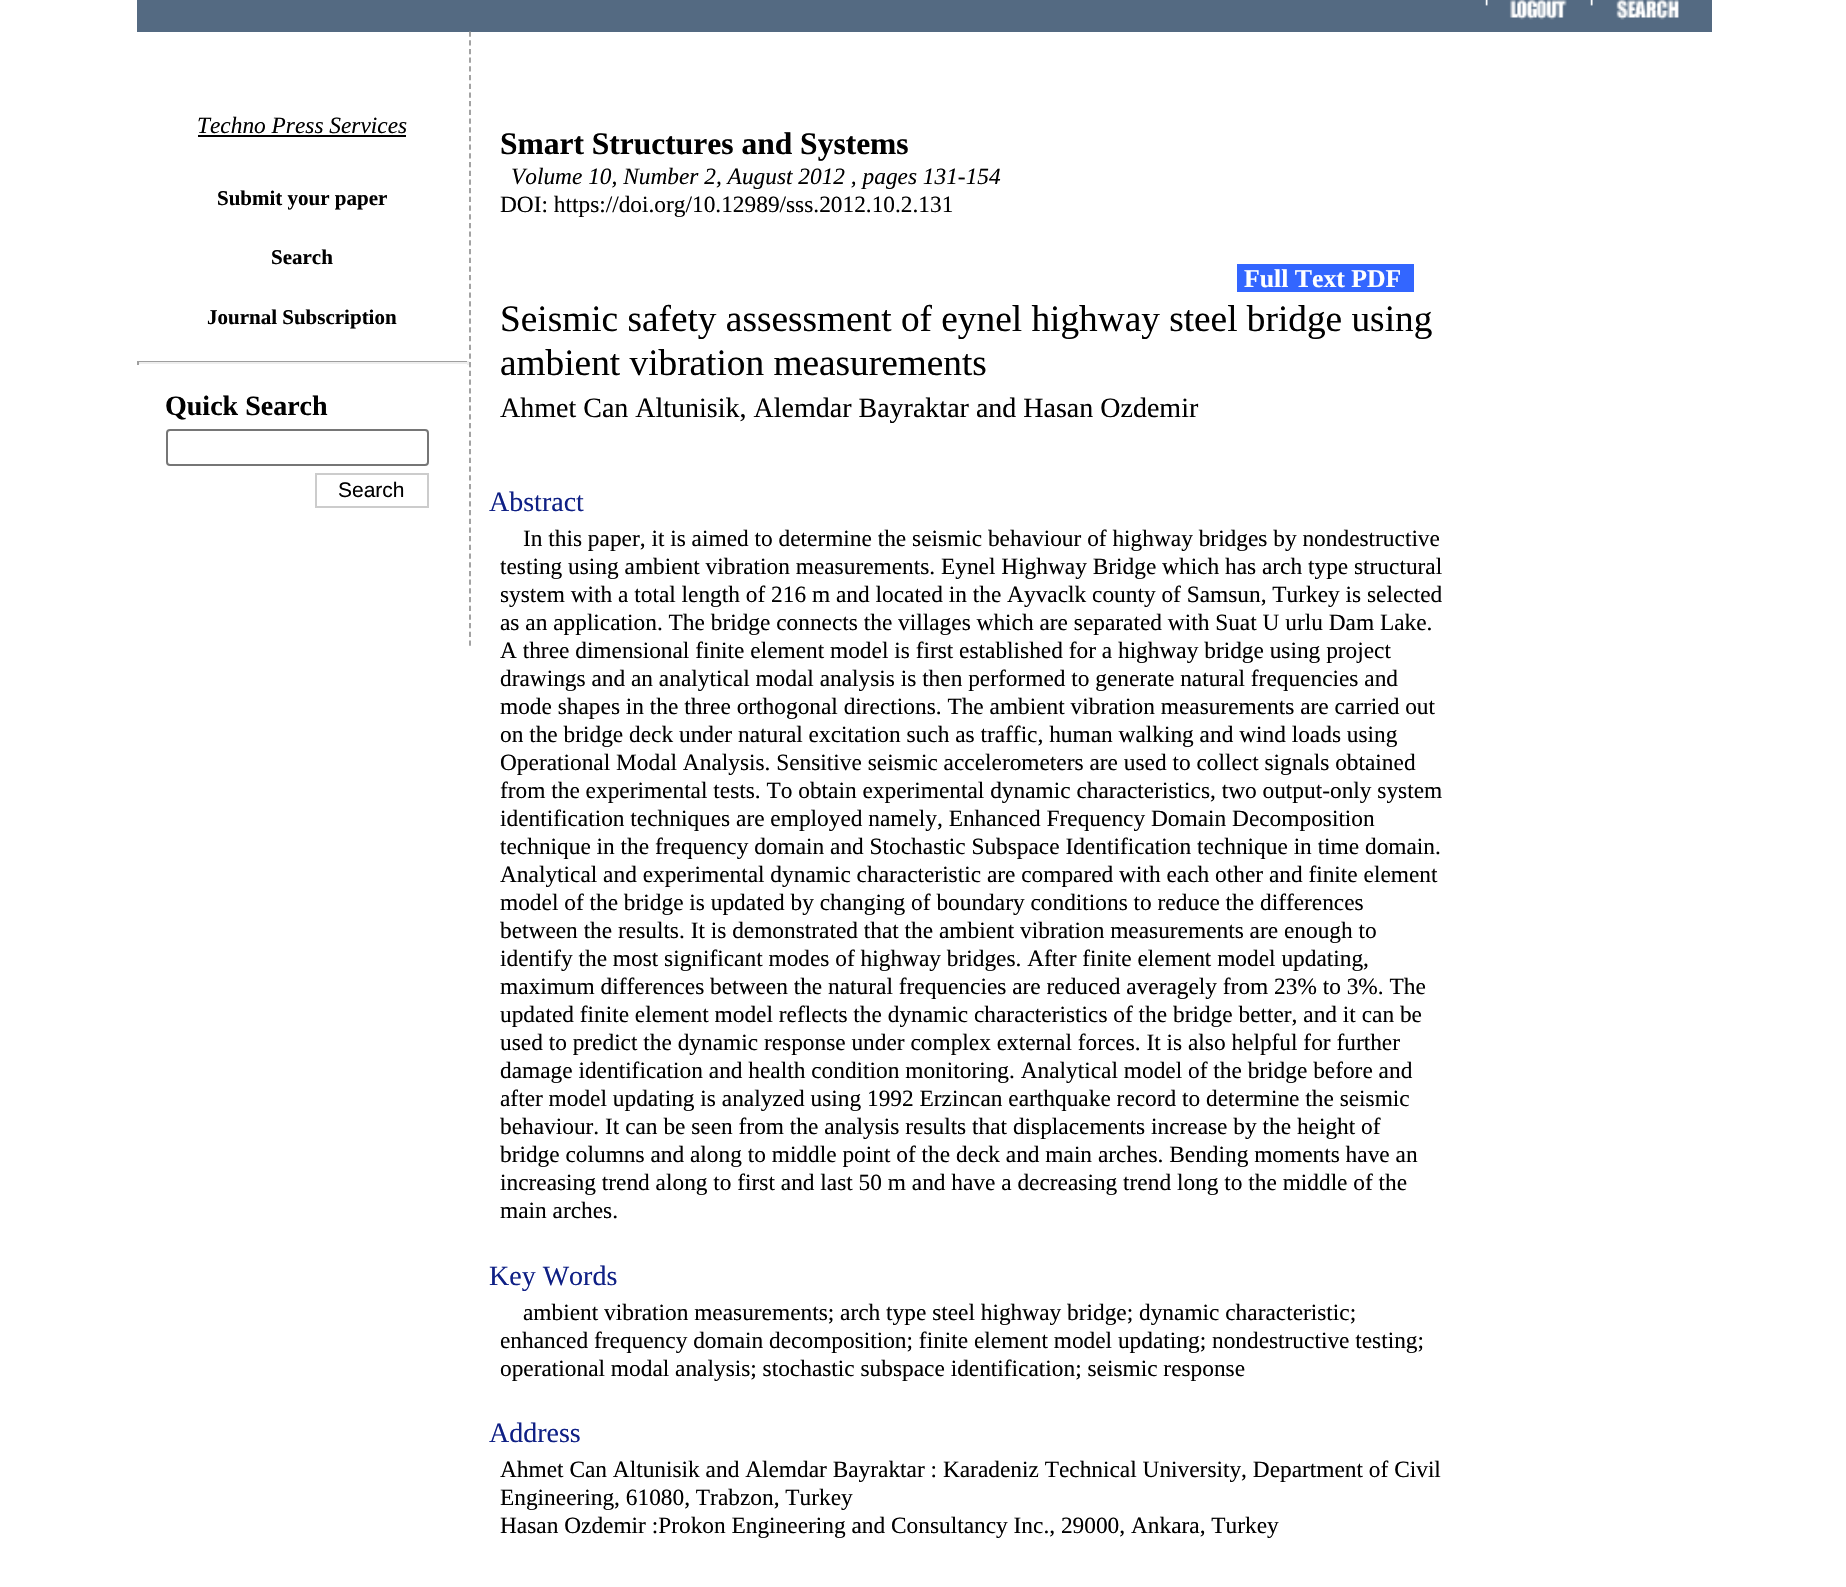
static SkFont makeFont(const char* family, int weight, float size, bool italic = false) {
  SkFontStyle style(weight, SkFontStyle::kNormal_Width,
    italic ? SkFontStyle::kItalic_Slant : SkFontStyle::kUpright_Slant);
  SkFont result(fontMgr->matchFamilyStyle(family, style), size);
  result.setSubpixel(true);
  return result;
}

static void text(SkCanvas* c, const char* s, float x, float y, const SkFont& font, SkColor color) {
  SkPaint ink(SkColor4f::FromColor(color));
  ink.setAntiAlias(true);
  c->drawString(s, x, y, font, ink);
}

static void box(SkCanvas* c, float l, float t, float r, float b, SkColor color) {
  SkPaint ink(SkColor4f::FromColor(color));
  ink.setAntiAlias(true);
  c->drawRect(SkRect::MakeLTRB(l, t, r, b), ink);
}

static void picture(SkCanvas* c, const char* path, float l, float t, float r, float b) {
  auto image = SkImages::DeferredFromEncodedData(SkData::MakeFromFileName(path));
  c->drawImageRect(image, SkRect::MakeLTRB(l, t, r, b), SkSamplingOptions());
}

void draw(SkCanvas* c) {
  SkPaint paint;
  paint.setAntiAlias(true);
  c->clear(0xffffffff);
  box(c, 137, 0, 1712, 32, 0xff546a82);
  picture(c, "img_01.png", 1485, 0, 1567, 20);
  picture(c, "img_02.png", 1590, 0, 1679, 20);
  paint.setStyle(SkPaint::kStroke_Style);
  paint.setStrokeWidth(1.8f);
  paint.setColor(0xff999999);
  paint.setPathEffect(SkDashPathEffect::Make({{5.25f, 3.45f}}, 0));
  c->drawPath(SkPathBuilder().moveTo(470, 31.5f).lineTo(470, 646).detach(), paint);
  paint.setPathEffect(nullptr);
  SkFont face1 = makeFont("Liberation Serif", 400, 23.35f, true);
  text(c, "Techno Press Services", 197, 133, face1, 0xff000000);
  box(c, 198, 135, 406, 137, 0xff000000);
  SkFont face2 = makeFont("Liberation Serif", 700, 21);
  text(c, "Submit your paper", 217, 205, face2, 0xff000000);
  text(c, "Search", 271, 264, face2, 0xff000000);
  text(c, "Journal Subscription", 207, 324, face2, 0xff000000);
  box(c, 137, 361, 469, 362, 0xff9f9f9f);
  box(c, 467, 361, 469, 365, 0xffeeeeee);
  box(c, 137, 362, 469, 364, 0xffeeeeee);
  box(c, 137, 361, 139, 365, 0xff9f9f9f);
  SkFont face3 = makeFont("Liberation Serif", 700, 28);
  text(c, "Quick Search", 165, 415, face3, 0xff000000);
  paint.setStrokeWidth(2);
  paint.setColor(0xff767676);
  c->drawRoundRect(SkRect::MakeLTRB(167, 430, 428, 465), 3, 3, paint);
  paint.setColor(0xffcccccc);
  c->drawRect(SkRect::MakeLTRB(316, 474, 428, 507), paint);
  SkFont face4 = makeFont("Liberation Sans", 400, 21);
  text(c, "Search", 338, 497, face4, 0xff000000);
  SkFont face5 = makeFont("Liberation Serif", 700, 31.5f);
  text(c, "Smart Structures and Systems", 500, 154, face5, 0xff000000);
  text(c, "Volume 10, Number 2, August 2012 , pages 131-154", 511, 184, face1, 0xff000000);
  SkFont face6 = makeFont("Liberation Serif", 400, 23.35f);
  text(c, "DOI: https://doi.org/10.12989/sss.2012.10.2.131", 500, 212, face6, 0xff000000);
  box(c, 1237, 264, 1414, 292, 0xff3366ff);
  SkFont face7 = makeFont("Liberation Serif", 700, 25.75f);
  text(c, "Full Text PDF", 1244, 287, face7, 0xffffffff);
  SkFont face8 = makeFont("Liberation Serif", 400, 37.3f);
  text(c, "Seismic safety assessment of eynel highway steel bridge using", 500, 331, face8, 0xff000000);
  text(c, "ambient vibration measurements", 500, 375, face8, 0xff000000);
  SkFont face9 = makeFont("Liberation Serif", 400, 28);
  text(c, "Ahmet Can Altunisik, Alemdar Bayraktar and Hasan Ozdemir", 500, 417, face9, 0xff000000);
  text(c, "Abstract", 489, 511, face9, 0xff0f2085);
  text(c, "In this paper, it is aimed to determine the seismic behaviour of highway bridges by nondestructive", 523, 546, face6, 0xff000000);
  text(c, "testing using ambient vibration measurements. Eynel Highway Bridge which has arch type structural", 500, 574, face6, 0xff000000);
  text(c, "system with a total length of 216 m and located in the Ayvaclk county of Samsun, Turkey is selected", 500, 602, face6, 0xff000000);
  text(c, "as an application. The bridge connects the villages which are separated with Suat U urlu Dam Lake.", 500, 630, face6, 0xff000000);
  text(c, "A three dimensional finite element model is first established for a highway bridge using project", 500, 658, face6, 0xff000000);
  text(c, "drawings and an analytical modal analysis is then performed to generate natural frequencies and", 500, 686, face6, 0xff000000);
  text(c, "mode shapes in the three orthogonal directions. The ambient vibration measurements are carried out", 500, 714, face6, 0xff000000);
  text(c, "on the bridge deck under natural excitation such as traffic, human walking and wind loads using", 500, 742, face6, 0xff000000);
  text(c, "Operational Modal Analysis. Sensitive seismic accelerometers are used to collect signals obtained", 500, 770, face6, 0xff000000);
  text(c, "from the experimental tests. To obtain experimental dynamic characteristics, two output-only system", 500, 798, face6, 0xff000000);
  text(c, "identification techniques are employed namely, Enhanced Frequency Domain Decomposition", 500, 826, face6, 0xff000000);
  text(c, "technique in the frequency domain and Stochastic Subspace Identification technique in time domain.", 500, 854, face6, 0xff000000);
  text(c, "Analytical and experimental dynamic characteristic are compared with each other and finite element", 500, 882, face6, 0xff000000);
  text(c, "model of the bridge is updated by changing of boundary conditions to reduce the differences", 500, 910, face6, 0xff000000);
  text(c, "between the results. It is demonstrated that the ambient vibration measurements are enough to", 500, 938, face6, 0xff000000);
  text(c, "identify the most significant modes of highway bridges. After finite element model updating,", 500, 966, face6, 0xff000000);
  text(c, "maximum differences between the natural frequencies are reduced averagely from 23% to 3%. The", 500, 994, face6, 0xff000000);
  text(c, "updated finite element model reflects the dynamic characteristics of the bridge better, and it can be", 500, 1022, face6, 0xff000000);
  text(c, "used to predict the dynamic response under complex external forces. It is also helpful for further", 500, 1050, face6, 0xff000000);
  text(c, "damage identification and health condition monitoring. Analytical model of the bridge before and", 500, 1078, face6, 0xff000000);
  text(c, "after model updating is analyzed using 1992 Erzincan earthquake record to determine the seismic", 500, 1106, face6, 0xff000000);
  text(c, "behaviour. It can be seen from the analysis results that displacements increase by the height of", 500, 1134, face6, 0xff000000);
  text(c, "bridge columns and along to middle point of the deck and main arches. Bending moments have an", 500, 1162, face6, 0xff000000);
  text(c, "increasing trend along to first and last 50 m and have a decreasing trend long to the middle of the", 500, 1190, face6, 0xff000000);
  text(c, "main arches.", 500, 1218, face6, 0xff000000);
  text(c, "Key Words", 489, 1285, face9, 0xff0f2085);
  text(c, "ambient vibration measurements; arch type steel highway bridge; dynamic characteristic;", 523, 1320, face6, 0xff000000);
  text(c, "enhanced frequency domain decomposition; finite element model updating; nondestructive testing;", 500, 1348, face6, 0xff000000);
  text(c, "operational modal analysis; stochastic subspace identification; seismic response", 500, 1376, face6, 0xff000000);
  text(c, "Address", 489, 1442, face9, 0xff0f2085);
  text(c, "Ahmet Can Altunisik and Alemdar Bayraktar : Karadeniz Technical University, Department of Civil", 500, 1477, face6, 0xff000000);
  text(c, "Engineering, 61080, Trabzon, Turkey", 500, 1505, face6, 0xff000000);
  text(c, "Hasan Ozdemir :Prokon Engineering and Consultancy Inc., 29000, Ankara, Turkey", 500, 1533, face6, 0xff000000);
}
